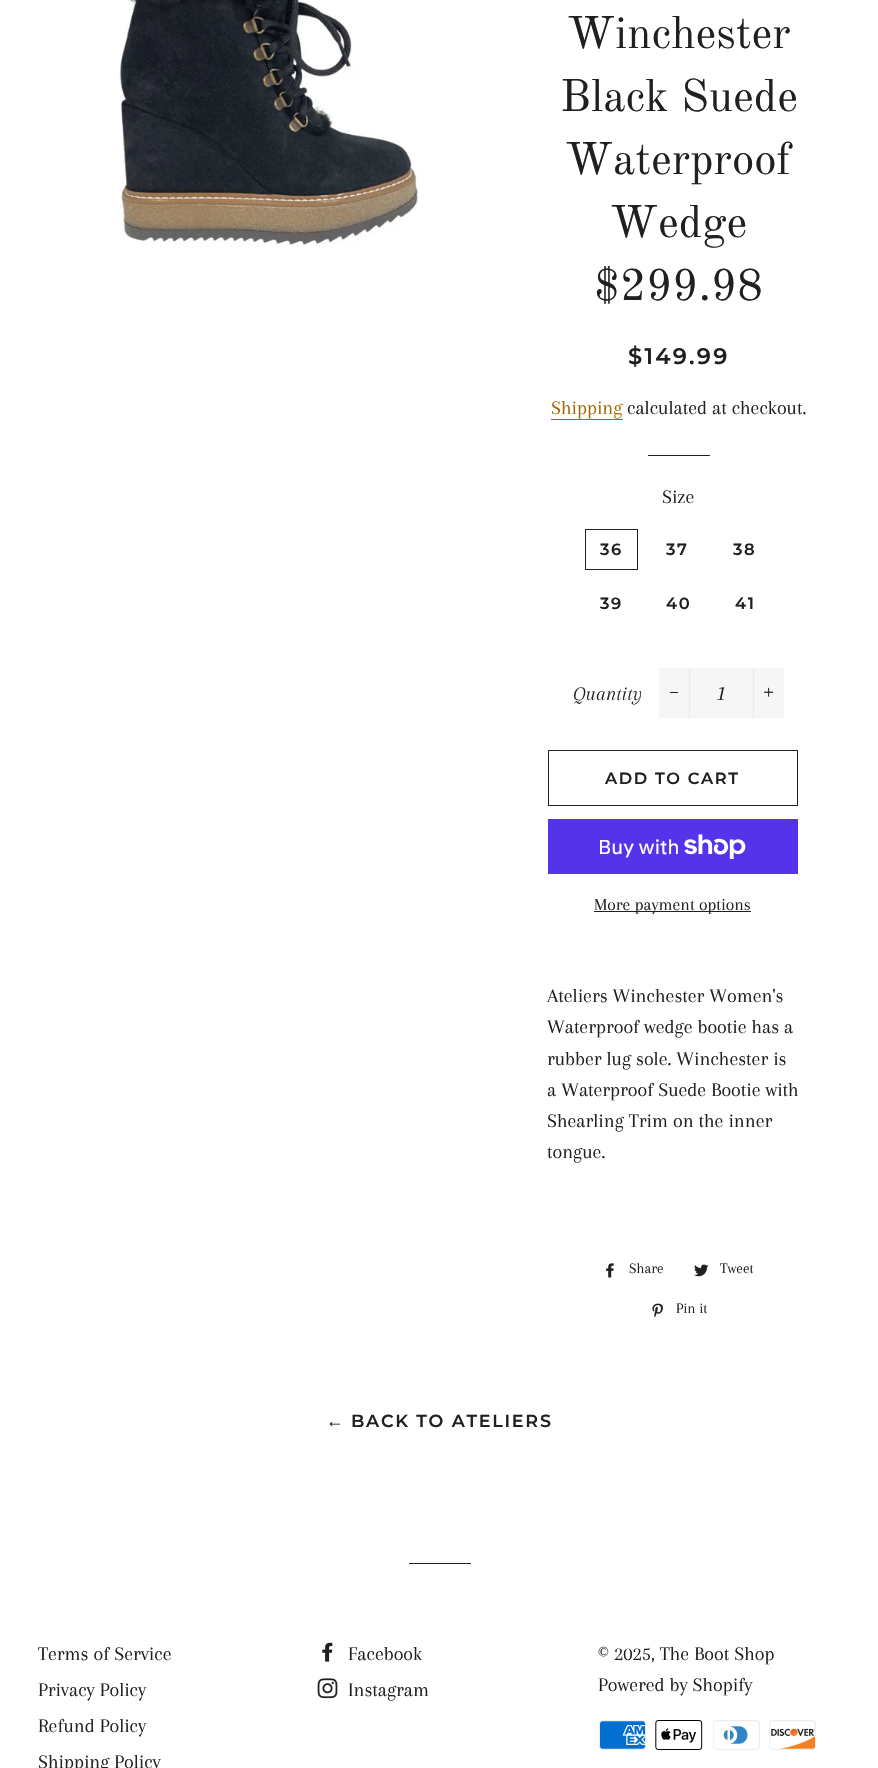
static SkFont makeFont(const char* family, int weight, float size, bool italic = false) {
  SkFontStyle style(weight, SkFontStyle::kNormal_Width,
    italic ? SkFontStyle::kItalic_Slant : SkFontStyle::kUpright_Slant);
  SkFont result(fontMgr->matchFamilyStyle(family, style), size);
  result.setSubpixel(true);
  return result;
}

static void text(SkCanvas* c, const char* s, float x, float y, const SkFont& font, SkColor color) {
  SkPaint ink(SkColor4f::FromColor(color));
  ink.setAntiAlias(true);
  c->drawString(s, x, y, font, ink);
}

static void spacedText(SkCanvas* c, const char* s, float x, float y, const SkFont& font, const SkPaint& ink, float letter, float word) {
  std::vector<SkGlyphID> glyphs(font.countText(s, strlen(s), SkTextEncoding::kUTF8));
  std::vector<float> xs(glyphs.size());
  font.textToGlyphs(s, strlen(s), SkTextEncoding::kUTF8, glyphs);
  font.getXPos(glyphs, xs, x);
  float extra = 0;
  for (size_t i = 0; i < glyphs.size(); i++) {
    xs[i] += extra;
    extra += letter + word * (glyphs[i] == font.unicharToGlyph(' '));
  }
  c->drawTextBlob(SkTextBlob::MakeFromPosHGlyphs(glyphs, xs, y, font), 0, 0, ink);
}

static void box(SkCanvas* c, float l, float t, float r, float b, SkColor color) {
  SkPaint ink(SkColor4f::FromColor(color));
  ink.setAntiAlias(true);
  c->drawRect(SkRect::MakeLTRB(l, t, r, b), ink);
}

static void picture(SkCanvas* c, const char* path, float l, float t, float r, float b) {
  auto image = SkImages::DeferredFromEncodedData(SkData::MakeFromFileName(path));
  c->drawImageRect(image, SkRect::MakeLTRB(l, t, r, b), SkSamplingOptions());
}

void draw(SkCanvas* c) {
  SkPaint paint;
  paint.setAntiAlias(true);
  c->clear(0xffffffff);
  picture(c, "img_01.png", 119, 0, 419, 247);
  SkFont face1 = makeFont("Old Standard TT", 400, 45);
  text(c, "Winchester", 567, 48, face1, 0xff1f2021);
  text(c, "Black Suede", 560, 111, face1, 0xff1f2021);
  text(c, "Waterproof", 565, 174, face1, 0xff1f2021);
  text(c, "Wedge", 610, 237, face1, 0xff1f2021);
  text(c, "$299.98", 594, 300, face1, 0xff1f2021);
  SkFont face2 = makeFont("Montserrat", 600, 22.5f);
  paint.setColor(0xff1f2021);
  spacedText(c, "$149.99", 628, 364, face2, paint, 2.25f, 0);
  SkFont face3 = makeFont("Arapey", 400, 20);
  text(c, "Shipping", 551, 414, face3, 0xffa56600);
  box(c, 551, 419, 623, 420, 0xffa56600);
  text(c, "calculated at checkout.", 627, 414, face3, 0xff1f2021);
  box(c, 648, 455, 710, 456, 0xff1f2021);
  text(c, "Size", 662, 503, face3, 0xff1f2021);
  paint.setStyle(SkPaint::kStroke_Style);
  paint.setStrokeWidth(1);
  c->drawRect(SkRect::MakeLTRB(585.5f, 529.5f, 637.5f, 569.5f), paint);
  SkFont face4 = makeFont("Montserrat", 600, 16.25f);
  paint.setStyle(SkPaint::kFill_Style);
  spacedText(c, "36", 600, 555, face4, paint, 1.6f, 0);
  spacedText(c, "37", 666, 555, face4, paint, 1.6f, 0);
  spacedText(c, "38", 733, 555, face4, paint, 1.6f, 0);
  spacedText(c, "39", 600, 609, face4, paint, 1.6f, 0);
  spacedText(c, "40", 666, 609, face4, paint, 1.6f, 0);
  spacedText(c, "41", 735, 609, face4, paint, 1.6f, 0);
  SkFont face5 = makeFont("Arapey", 400, 20, true);
  text(c, "Quantity", 573, 700, face5, 0xff1f2021);
  box(c, 659, 668, 784, 718, 0xfff6f6f6);
  box(c, 689, 668, 690, 718, 0xffe9e9e9);
  box(c, 670, 692, 678, 693, 0xff1c1d1d);
  SkFont face6 = makeFont("Arapey", 400, 22.5f, true);
  text(c, "1", 718, 700, face6, 0xff1f2021);
  box(c, 753, 668, 754, 718, 0xffe9e9e9);
  picture(c, "img_02.png", 764, 687, 773, 697);
  paint.setStyle(SkPaint::kStroke_Style);
  c->drawRect(SkRect::MakeLTRB(548.5f, 750.5f, 797.5f, 805.5f), paint);
  paint.setStyle(SkPaint::kFill_Style);
  spacedText(c, "ADD TO CART", 605, 784, face4, paint, 1.6f, 0);
  box(c, 548, 819, 798, 874, 0xff5433eb);
  SkFont face7 = makeFont("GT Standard", 400, 20);
  text(c, "Buy with", 598, 854, face7, 0xffffffff);
  picture(c, "img_03.png", 684, 834, 746, 859);
  box(c, 594, 911, 751, 912, 0xff1f2021);
  SkFont face8 = makeFont("Arapey", 400, 17.5f);
  text(c, "More payment options", 594, 910, face8, 0xff1f2021);
  text(c, "Ateliers Winchester Women's", 547, 1002, face3, 0xff1f2021);
  text(c, "Waterproof wedge bootie has a", 547, 1033, face3, 0xff1f2021);
  text(c, "rubber lug sole. Winchester is", 547, 1065, face3, 0xff1f2021);
  text(c, "a Waterproof Suede Bootie with", 547, 1096, face3, 0xff1f2021);
  text(c, "Shearling Trim on the inner", 547, 1127, face3, 0xff1f2021);
  text(c, "tongue.", 547, 1158, face3, 0xff1f2021);
  picture(c, "img_04.png", 606, 1263, 614, 1278);
  SkFont face9 = makeFont("Arapey", 400, 15);
  text(c, "Share", 629, 1273, face9, 0xff1f2021);
  picture(c, "img_05.png", 694, 1264, 709, 1277);
  text(c, "Tweet", 720, 1273, face9, 0xff1f2021);
  picture(c, "img_06.png", 652, 1303, 663, 1318);
  text(c, "Pin it", 676, 1313, face9, 0xff1f2021);
  SkFont face10 = makeFont("Liberation Sans", 700, 17.5f);
  spacedText(c, "←", 326, 1427, face10, paint, 1.75f, 0);
  SkFont face11 = makeFont("Montserrat", 600, 17.5f);
  spacedText(c, "BACK TO ATELIERS", 351, 1427, face11, paint, 1.75f, 0);
  box(c, 409, 1563, 471, 1564, 0xff1f2021);
  text(c, "Terms of Service", 38, 1660, face3, 0xff1f2021);
  text(c, "Privacy Policy", 38, 1696, face3, 0xff1f2021);
  text(c, "Refund Policy", 38, 1732, face3, 0xff1f2021);
  text(c, "Shipping Policy", 38, 1768, face3, 0xff1f2021);
  picture(c, "img_07.png", 322, 1642, 333, 1662);
  text(c, "Facebook", 348, 1660, face3, 0xff1f2021);
  picture(c, "img_08.png", 317, 1678, 338, 1699);
  text(c, "Instagram", 348, 1696, face3, 0xff1f2021);
  text(c, "© 2025, The Boot Shop", 598, 1660, face3, 0xff1f2021);
  text(c, "Powered by Shopify", 598, 1691, face3, 0xff1f2021);
  picture(c, "img_09.png", 599, 1720, 646, 1750);
  picture(c, "img_10.png", 655, 1720, 703, 1750);
  picture(c, "img_11.png", 713, 1720, 760, 1750);
  picture(c, "img_12.png", 769, 1720, 816, 1750);
}
